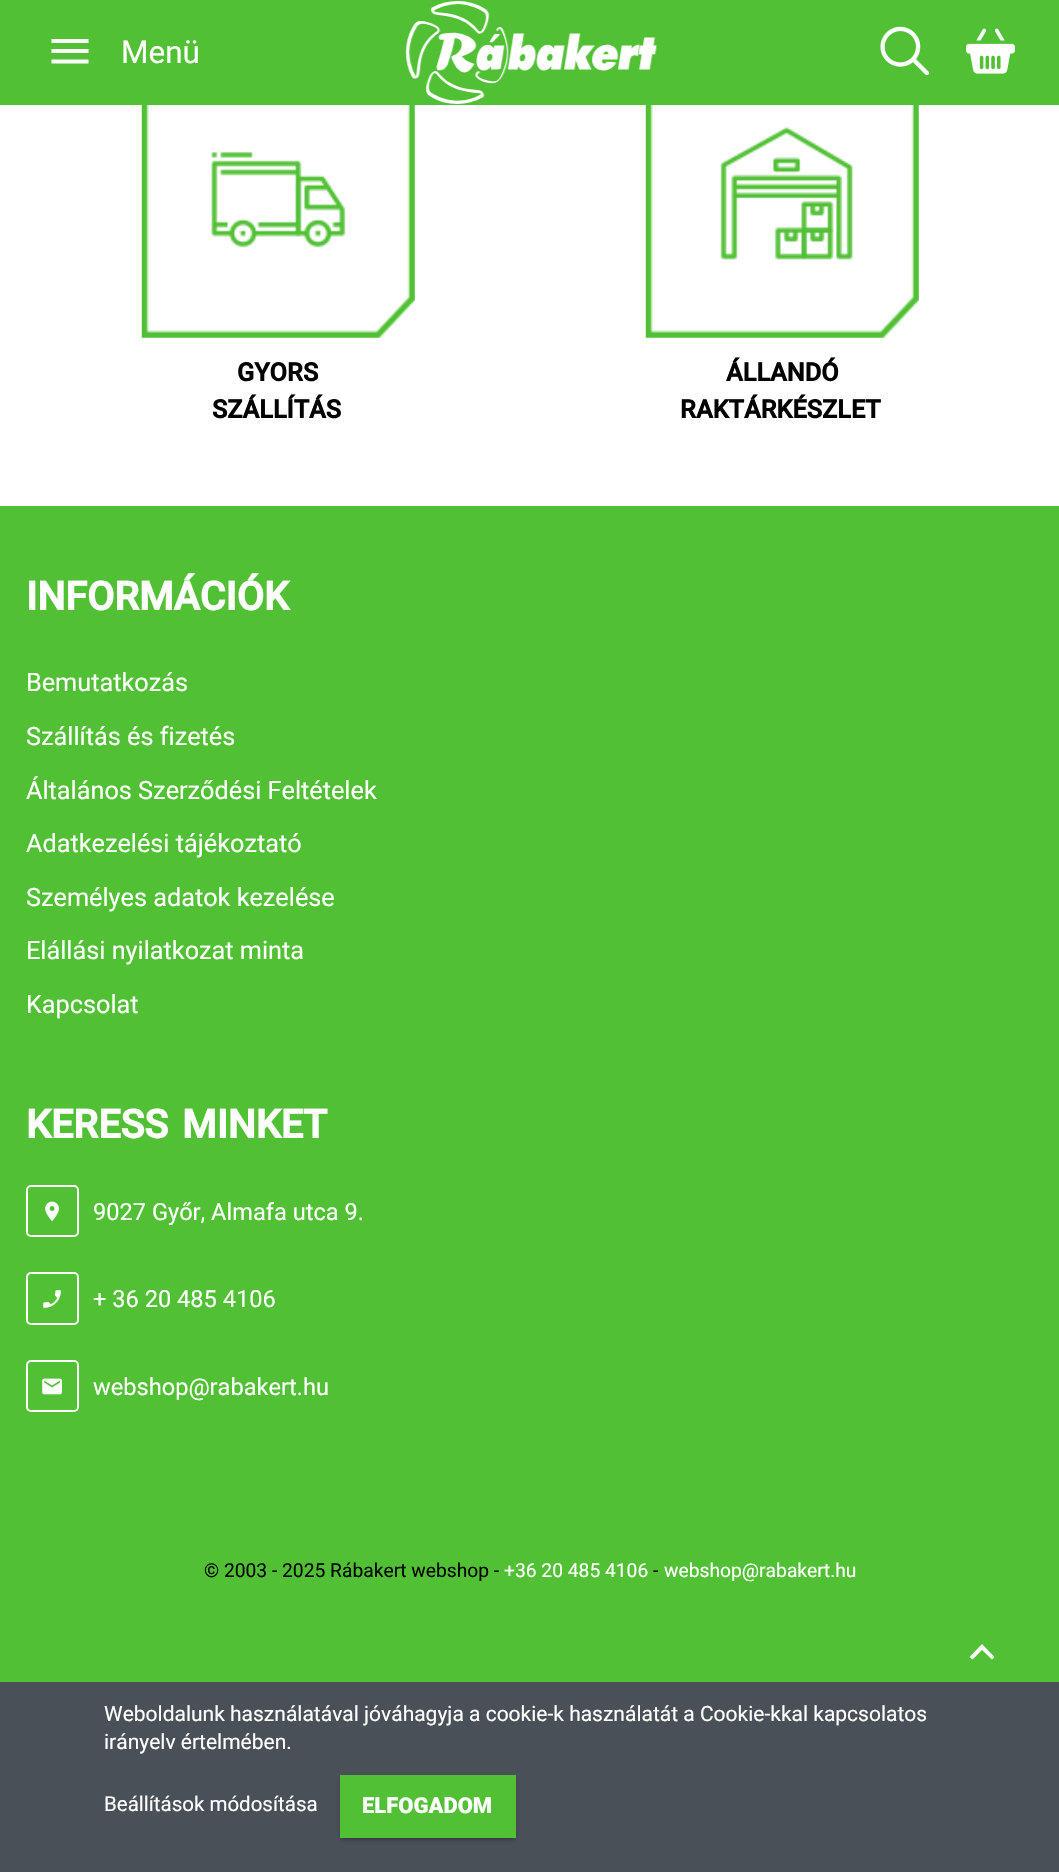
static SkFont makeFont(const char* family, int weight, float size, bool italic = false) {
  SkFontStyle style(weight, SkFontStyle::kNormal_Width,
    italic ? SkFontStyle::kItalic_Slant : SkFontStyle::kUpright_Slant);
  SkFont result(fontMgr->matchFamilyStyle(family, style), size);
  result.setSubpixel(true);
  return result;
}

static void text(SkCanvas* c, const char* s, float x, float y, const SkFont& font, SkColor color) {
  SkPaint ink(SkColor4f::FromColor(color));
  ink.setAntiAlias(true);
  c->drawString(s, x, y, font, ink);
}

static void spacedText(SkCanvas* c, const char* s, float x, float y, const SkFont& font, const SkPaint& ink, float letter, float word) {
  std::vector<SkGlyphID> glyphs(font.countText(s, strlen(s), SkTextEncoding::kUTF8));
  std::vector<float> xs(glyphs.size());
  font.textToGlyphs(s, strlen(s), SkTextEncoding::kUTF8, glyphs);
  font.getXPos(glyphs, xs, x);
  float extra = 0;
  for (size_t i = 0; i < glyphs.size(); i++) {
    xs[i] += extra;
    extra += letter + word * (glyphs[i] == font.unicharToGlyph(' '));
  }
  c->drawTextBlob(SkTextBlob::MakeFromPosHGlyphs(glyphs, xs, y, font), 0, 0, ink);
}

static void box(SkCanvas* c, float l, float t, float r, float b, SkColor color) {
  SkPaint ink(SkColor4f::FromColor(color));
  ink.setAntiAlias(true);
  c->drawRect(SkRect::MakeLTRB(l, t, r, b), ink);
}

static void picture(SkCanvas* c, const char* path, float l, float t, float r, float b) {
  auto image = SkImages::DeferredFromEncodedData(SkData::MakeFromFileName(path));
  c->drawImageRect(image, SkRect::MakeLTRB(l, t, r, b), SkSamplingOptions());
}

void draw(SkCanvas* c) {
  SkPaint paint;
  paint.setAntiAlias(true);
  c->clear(0xffffffff);
  box(c, 0, 0, 1059, 105, 0xff51c035);
  paint.setColor(0xffffffff);
  c->drawPath(SkPathBuilder().moveTo(51.5f, 63.5f).lineTo(88.5f, 63.5f).lineTo(88.5f, 59.5f).lineTo(51.5f, 59.5f).close().moveTo(51.5f, 53).lineTo(88.5f, 53).lineTo(88.5f, 49).lineTo(51.5f, 49).close().moveTo(51.5f, 39).lineTo(51.5f, 43).lineTo(88.5f, 43).lineTo(88.5f, 39).close().detach(), paint);
  SkFont face1 = makeFont("Roboto", 400, 31.5f);
  text(c, "Menü", 121, 63, face1, 0xffffffff);
  picture(c, "img_01.png", 405, 1, 658, 104);
  picture(c, "img_02.png", 880, 26, 929, 76);
  picture(c, "img_03.png", 966, 28, 1015, 74);
  picture(c, "img_04.png", 141, 105, 415, 338);
  SkFont face2 = makeFont("Roboto", 700, 25.25f);
  text(c, "GYORS", 237, 381, face2, 0xff030303);
  text(c, "SZÁLLÍTÁS", 212, 418, face2, 0xff030303);
  picture(c, "img_05.png", 645, 105, 919, 338);
  text(c, "ÁLLANDÓ", 726, 381, face2, 0xff030303);
  text(c, "RAKTÁRKÉSZLET", 680, 418, face2, 0xff030303);
  box(c, 0, 506, 1059, 1682, 0xff51c035);
  SkFont face3 = makeFont("Roboto", 700, 39.5f);
  text(c, "INFORMÁCIÓK", 26, 610, face3, 0xffffffff);
  SkFont face4 = makeFont("Roboto", 400, 25.25f);
  text(c, "Bemutatkozás", 26, 691, face4, 0xffffffff);
  text(c, "Szállítás és fizetés", 26, 745, face4, 0xffffffff);
  text(c, "Általános Szerződési Feltételek", 26, 799, face4, 0xffffffff);
  text(c, "Adatkezelési tájékoztató", 26, 852, face4, 0xffffffff);
  text(c, "Személyes adatok kezelése", 26, 906, face4, 0xffffffff);
  text(c, "Elállási nyilatkozat minta", 26, 959, face4, 0xffffffff);
  text(c, "Kapcsolat", 26, 1013, face4, 0xffffffff);
  spacedText(c, "KERESS MINKET", 26, 1138, face3, paint, 0, 4);
  paint.setStyle(SkPaint::kStroke_Style);
  paint.setStrokeWidth(2);
  c->drawRoundRect(SkRect::MakeLTRB(27, 1186, 78, 1236), 4, 4, paint);
  picture(c, "img_06.png", 45, 1201, 59, 1222);
  SkFont face5 = makeFont("Roboto", 400, 23.6f);
  text(c, "9027 Győr, Almafa utca 9.", 93, 1220, face5, 0xffffffff);
  c->drawRoundRect(SkRect::MakeLTRB(27, 1273, 78, 1324), 4, 4, paint);
  picture(c, "img_07.png", 43, 1290, 61, 1308);
  text(c, "+ 36 20 485 4106", 93, 1307, face5, 0xffffffff);
  c->drawRoundRect(SkRect::MakeLTRB(27, 1361, 78, 1411), 4, 4, paint);
  picture(c, "img_08.png", 42, 1378, 62, 1395);
  text(c, "webshop@rabakert.hu", 93, 1395, face5, 0xffffffff);
  SkFont face6 = makeFont("Roboto", 400, 19.25f);
  text(c, "© 2003 - 2025 Rábakert webshop -", 204, 1577, face6, 0xff030303);
  text(c, "+36 20 485 4106", 504, 1577, face6, 0xffffffff);
  text(c, "-", 653, 1577, face6, 0xff030303);
  text(c, "webshop@rabakert.hu", 664, 1577, face6, 0xffffffff);
  paint.setStyle(SkPaint::kFill_Style);
  c->drawPath(SkPathBuilder().moveTo(969.5f, 1657).lineTo(972.5f, 1659.5f).lineTo(982, 1650).lineTo(992, 1659.5f).lineTo(994.5f, 1657).lineTo(982, 1644).close().detach(), paint);
  box(c, 0, 1682, 1059, 1872, 0xff495057);
  SkFont face7 = makeFont("Roboto", 400, 21);
  text(c, "Weboldalunk használatával jóváhagyja a cookie-k használatát a Cookie-kkal kapcsolatos", 104, 1721, face7, 0xffffffff);
  text(c, "irányelv értelmében.", 104, 1749, face7, 0xffffffff);
  SkFont face8 = makeFont("Roboto", 400, 20.5f);
  text(c, "Beállítások módosítása", 104, 1811, face8, 0xffffffff);
  paint.setColor(0x33000000);
  paint.setMaskFilter(SkMaskFilter::MakeBlur(kNormal_SkBlurStyle, 1));
  c->drawRect(SkRect::MakeLTRB(343, 1783, 513, 1839), paint);
  paint.setMaskFilter(nullptr);
  paint.setColor(0x24000000);
  paint.setMaskFilter(SkMaskFilter::MakeBlur(kNormal_SkBlurStyle, 2));
  c->drawRect(SkRect::MakeLTRB(340, 1778, 516, 1841), paint);
  paint.setMaskFilter(nullptr);
  box(c, 340, 1775, 516, 1838, 0xff51c035);
  SkFont face9 = makeFont("Roboto", 900, 22);
  text(c, "ELFOGADOM", 362, 1813, face9, 0xffffffff);
}
